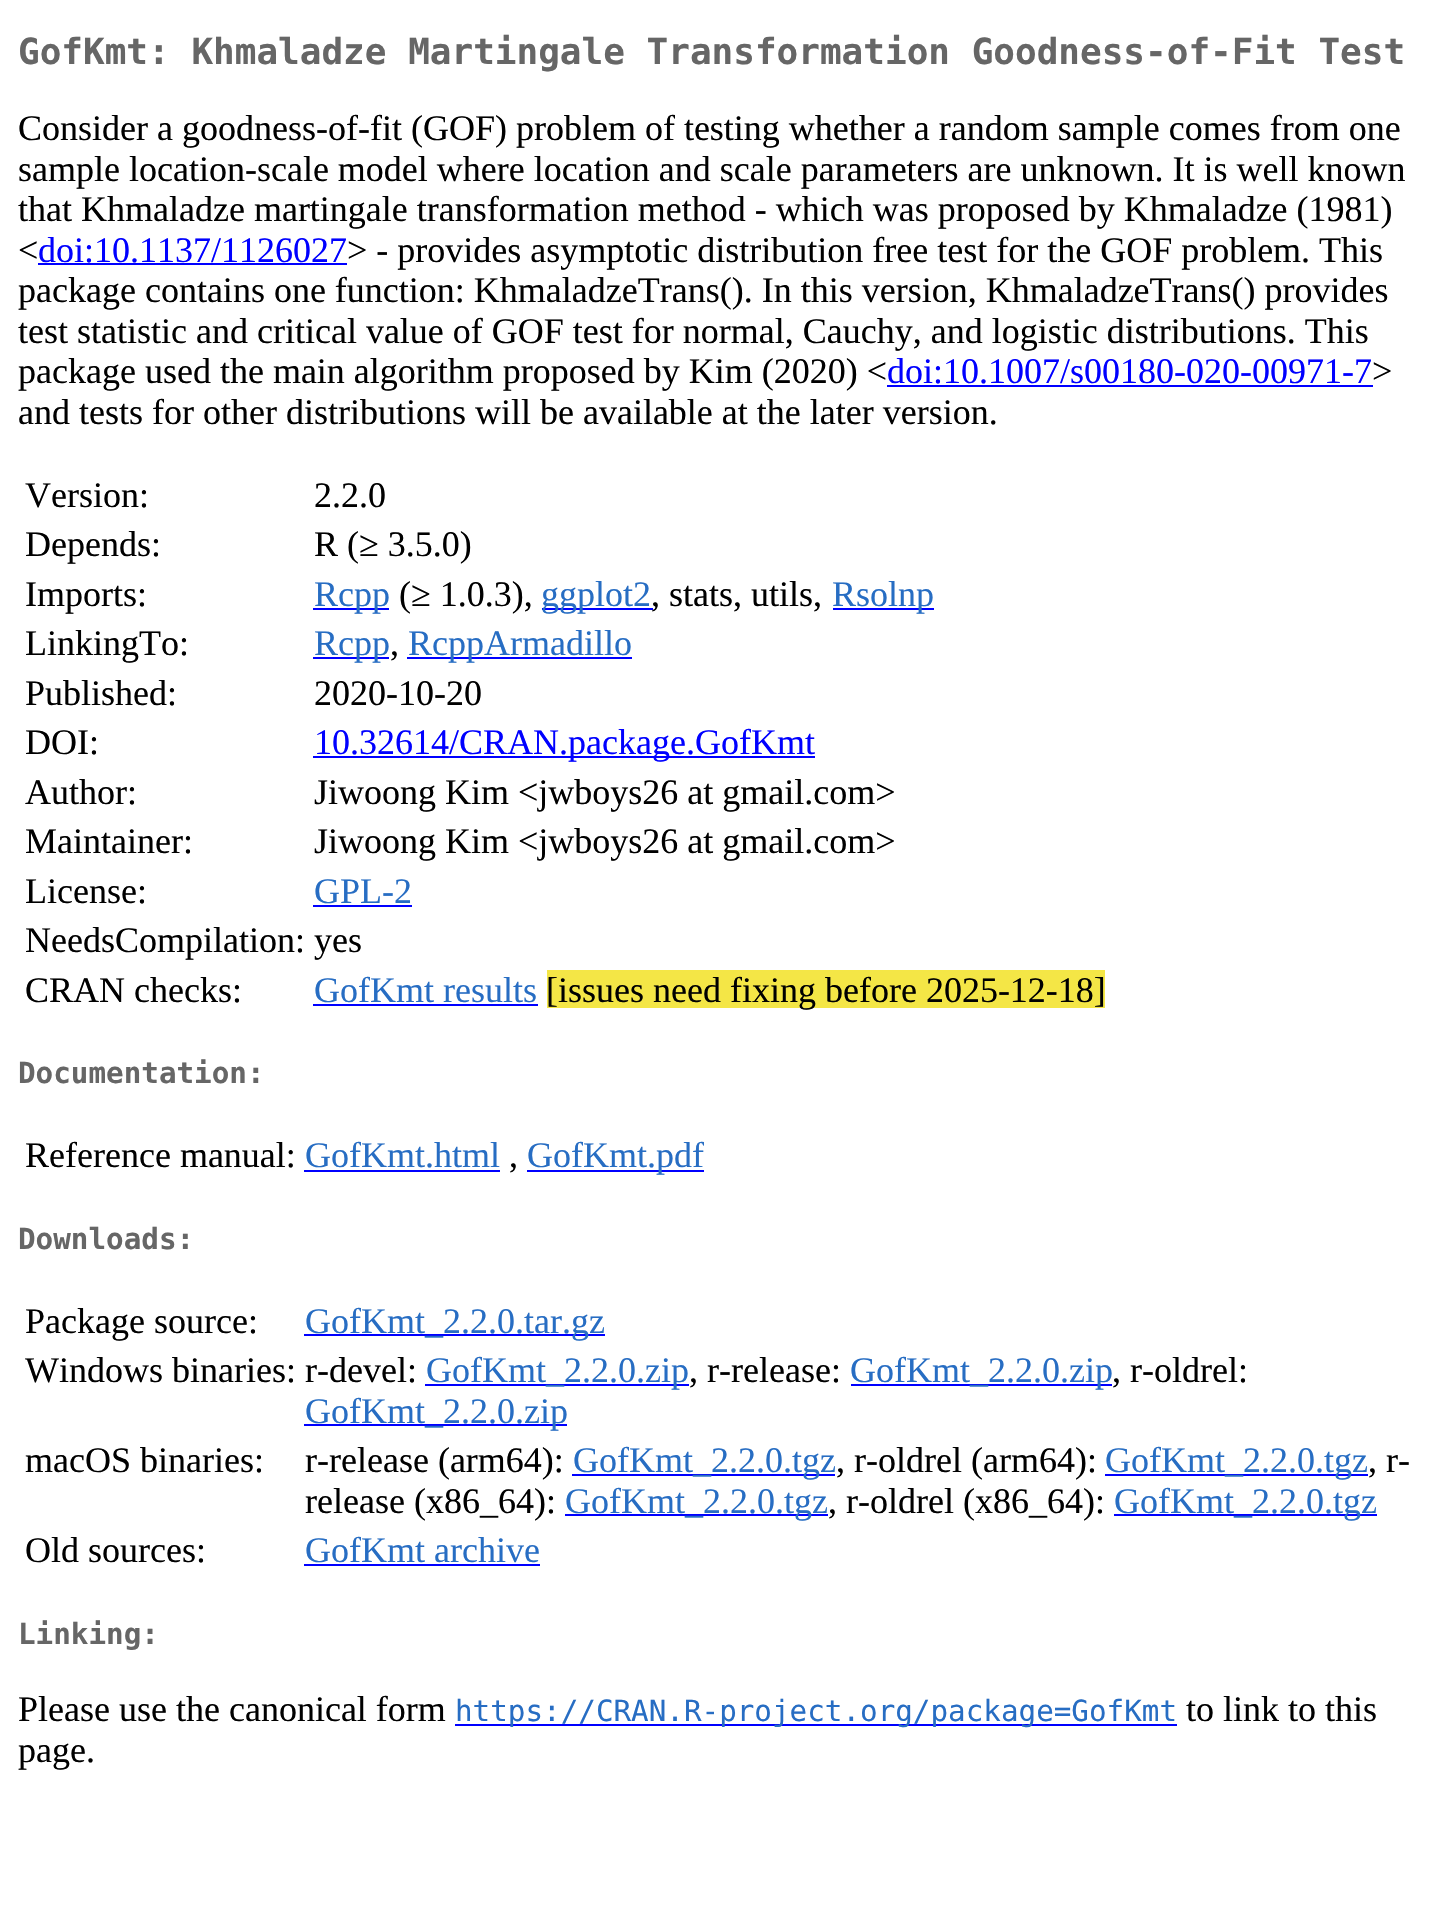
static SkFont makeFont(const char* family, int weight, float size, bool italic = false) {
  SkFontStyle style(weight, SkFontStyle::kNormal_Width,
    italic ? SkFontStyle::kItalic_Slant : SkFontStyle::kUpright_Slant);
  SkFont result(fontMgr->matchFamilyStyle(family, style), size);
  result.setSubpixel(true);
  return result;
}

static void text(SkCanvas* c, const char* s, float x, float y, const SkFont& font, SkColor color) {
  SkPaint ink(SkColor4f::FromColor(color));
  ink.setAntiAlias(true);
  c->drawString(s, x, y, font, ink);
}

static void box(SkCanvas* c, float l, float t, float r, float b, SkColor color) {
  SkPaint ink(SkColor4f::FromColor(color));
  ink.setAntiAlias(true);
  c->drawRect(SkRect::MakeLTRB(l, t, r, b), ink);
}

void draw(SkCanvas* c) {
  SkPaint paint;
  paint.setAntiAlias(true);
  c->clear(0xffffffff);
  SkFont face1 = makeFont("DejaVu Sans Mono", 700, 36);
  text(c, "GofKmt: Khmaladze Martingale Transformation Goodness-of-Fit Test", 18, 64, face1, 0xff666666);
  SkFont face2 = makeFont("Liberation Serif", 400, 36);
  text(c, "Consider a goodness-of-fit (GOF) problem of testing whether a random sample comes from one", 18, 140, face2, 0xff000000);
  text(c, "sample location-scale model where location and scale parameters are unknown. It is well known", 18, 181, face2, 0xff000000);
  text(c, "that Khmaladze martingale transformation method - which was proposed by Khmaladze (1981)", 18, 221, face2, 0xff000000);
  text(c, "<", 18, 262, face2, 0xff000000);
  text(c, "doi:10.1137/1126027", 38, 262, face2, 0xff0000ff);
  box(c, 38, 263, 347, 265, 0xff0000ff);
  text(c, "> - provides asymptotic distribution free test for the GOF problem. This", 347, 262, face2, 0xff000000);
  text(c, "package contains one function: KhmaladzeTrans(). In this version, KhmaladzeTrans() provides", 18, 302, face2, 0xff000000);
  text(c, "test statistic and critical value of GOF test for normal, Cauchy, and logistic distributions. This", 18, 343, face2, 0xff000000);
  text(c, "package used the main algorithm proposed by Kim (2020) <", 18, 383, face2, 0xff000000);
  text(c, "doi:10.1007/s00180-020-00971-7", 887, 383, face2, 0xff0000ff);
  box(c, 887, 385, 1373, 387, 0xff0000ff);
  text(c, ">", 1372, 383, face2, 0xff000000);
  text(c, "and tests for other distributions will be available at the later version.", 18, 424, face2, 0xff000000);
  text(c, "Version:", 25, 507, face2, 0xff000000);
  text(c, "2.2.0", 314, 507, face2, 0xff000000);
  text(c, "Depends:", 25, 556, face2, 0xff000000);
  text(c, "R (≥ 3.5.0)", 314, 556, face2, 0xff000000);
  text(c, "Imports:", 25, 606, face2, 0xff000000);
  box(c, 313, 608, 389, 610, 0xff0000ff);
  text(c, "Rcpp", 314, 606, face2, 0xff276dc3);
  text(c, "(≥ 1.0.3),", 399, 606, face2, 0xff000000);
  box(c, 542, 608, 653, 610, 0xff0000ff);
  text(c, "ggplot2", 541, 606, face2, 0xff276dc3);
  text(c, ", stats, utils,", 651, 606, face2, 0xff000000);
  box(c, 833, 608, 934, 610, 0xff0000ff);
  text(c, "Rsolnp", 832, 606, face2, 0xff276dc3);
  text(c, "LinkingTo:", 25, 655, face2, 0xff000000);
  box(c, 313, 657, 389, 659, 0xff0000ff);
  text(c, "Rcpp", 314, 655, face2, 0xff276dc3);
  text(c, ",", 390, 655, face2, 0xff000000);
  box(c, 407, 657, 632, 659, 0xff0000ff);
  text(c, "RcppArmadillo", 408, 655, face2, 0xff276dc3);
  text(c, "Published:", 25, 705, face2, 0xff000000);
  text(c, "2020-10-20", 314, 705, face2, 0xff000000);
  text(c, "DOI:", 25, 754, face2, 0xff000000);
  box(c, 313, 756, 815, 758, 0xff0000ff);
  text(c, "10.32614/CRAN.package.GofKmt", 314, 754, face2, 0xff0000ff);
  text(c, "Author:", 25, 804, face2, 0xff000000);
  text(c, "Jiwoong Kim <jwboys26 at gmail.com>", 314, 804, face2, 0xff000000);
  text(c, "Maintainer:", 25, 853, face2, 0xff000000);
  text(c, "Jiwoong Kim <jwboys26 at gmail.com>", 314, 853, face2, 0xff000000);
  text(c, "License:", 25, 903, face2, 0xff000000);
  text(c, "GPL-2", 314, 903, face2, 0xff276dc3);
  box(c, 313, 905, 412, 907, 0xff0000ff);
  text(c, "NeedsCompilation: yes", 25, 952, face2, 0xff000000);
  text(c, "CRAN checks:", 25, 1002, face2, 0xff000000);
  text(c, "GofKmt results", 314, 1002, face2, 0xff276dc3);
  box(c, 313, 1004, 538, 1006, 0xff0000ff);
  box(c, 547, 970, 1105, 1008, 0xfff4e646);
  text(c, "[issues need fixing before 2025-12-18]", 546, 1002, face2, 0xff000000);
  SkFont face3 = makeFont("DejaVu Sans Mono", 700, 29.25f);
  text(c, "Documentation:", 18, 1083, face3, 0xff666666);
  text(c, "Reference manual:", 25, 1167, face2, 0xff000000);
  text(c, "GofKmt.html", 305, 1167, face2, 0xff276dc3);
  box(c, 304, 1170, 500, 1172, 0xff0000ff);
  text(c, ",", 509, 1167, face2, 0xff000000);
  box(c, 527, 1170, 704, 1172, 0xff0000ff);
  text(c, "GofKmt.pdf", 527, 1167, face2, 0xff276dc3);
  text(c, "Downloads:", 18, 1249, face3, 0xff666666);
  text(c, "Package source:", 25, 1333, face2, 0xff000000);
  box(c, 304, 1334, 605, 1336, 0xff0000ff);
  text(c, "GofKmt_2.2.0.tar.gz", 305, 1333, face2, 0xff276dc3);
  text(c, "Windows binaries: r-devel:", 25, 1382, face2, 0xff000000);
  box(c, 425, 1384, 689, 1386, 0xff0000ff);
  text(c, "GofKmt_2.2.0.zip", 426, 1382, face2, 0xff276dc3);
  text(c, ", r-release:", 689, 1382, face2, 0xff000000);
  box(c, 851, 1384, 1112, 1386, 0xff0000ff);
  text(c, "GofKmt_2.2.0.zip", 850, 1382, face2, 0xff276dc3);
  text(c, ", r-oldrel:", 1112, 1382, face2, 0xff000000);
  box(c, 304, 1424, 567, 1426, 0xff0000ff);
  text(c, "GofKmt_2.2.0.zip", 305, 1423, face2, 0xff276dc3);
  text(c, "macOS binaries:", 25, 1472, face2, 0xff000000);
  text(c, "r-release (arm64):", 305, 1472, face2, 0xff000000);
  box(c, 572, 1474, 835, 1476, 0xff0000ff);
  text(c, "GofKmt_2.2.0.tgz", 573, 1472, face2, 0xff276dc3);
  text(c, ", r-oldrel (arm64):", 836, 1472, face2, 0xff000000);
  box(c, 1105, 1474, 1368, 1476, 0xff0000ff);
  text(c, "GofKmt_2.2.0.tgz", 1105, 1472, face2, 0xff276dc3);
  text(c, ", r-", 1368, 1472, face2, 0xff000000);
  text(c, "release (x86_64):", 305, 1513, face2, 0xff000000);
  box(c, 565, 1514, 828, 1516, 0xff0000ff);
  text(c, "GofKmt_2.2.0.tgz", 565, 1513, face2, 0xff276dc3);
  text(c, ", r-oldrel (x86_64):", 828, 1513, face2, 0xff000000);
  box(c, 1114, 1514, 1377, 1516, 0xff0000ff);
  text(c, "GofKmt_2.2.0.tgz", 1114, 1513, face2, 0xff276dc3);
  text(c, "Old sources:", 25, 1562, face2, 0xff000000);
  text(c, "GofKmt archive", 305, 1562, face2, 0xff276dc3);
  box(c, 304, 1564, 540, 1566, 0xff0000ff);
  text(c, "Linking:", 18, 1644, face3, 0xff666666);
  text(c, "Please use the canonical form", 18, 1721, face2, 0xff000000);
  box(c, 455, 1724, 1177, 1726, 0xff0000ff);
  SkFont face4 = makeFont("DejaVu Sans Mono", 400, 29.25f);
  text(c, "https://CRAN.R-project.org/package=GofKmt", 455, 1721, face4, 0xff276dc3);
  text(c, "to link to this", 1186, 1721, face2, 0xff000000);
  text(c, "page.", 18, 1762, face2, 0xff000000);
}
